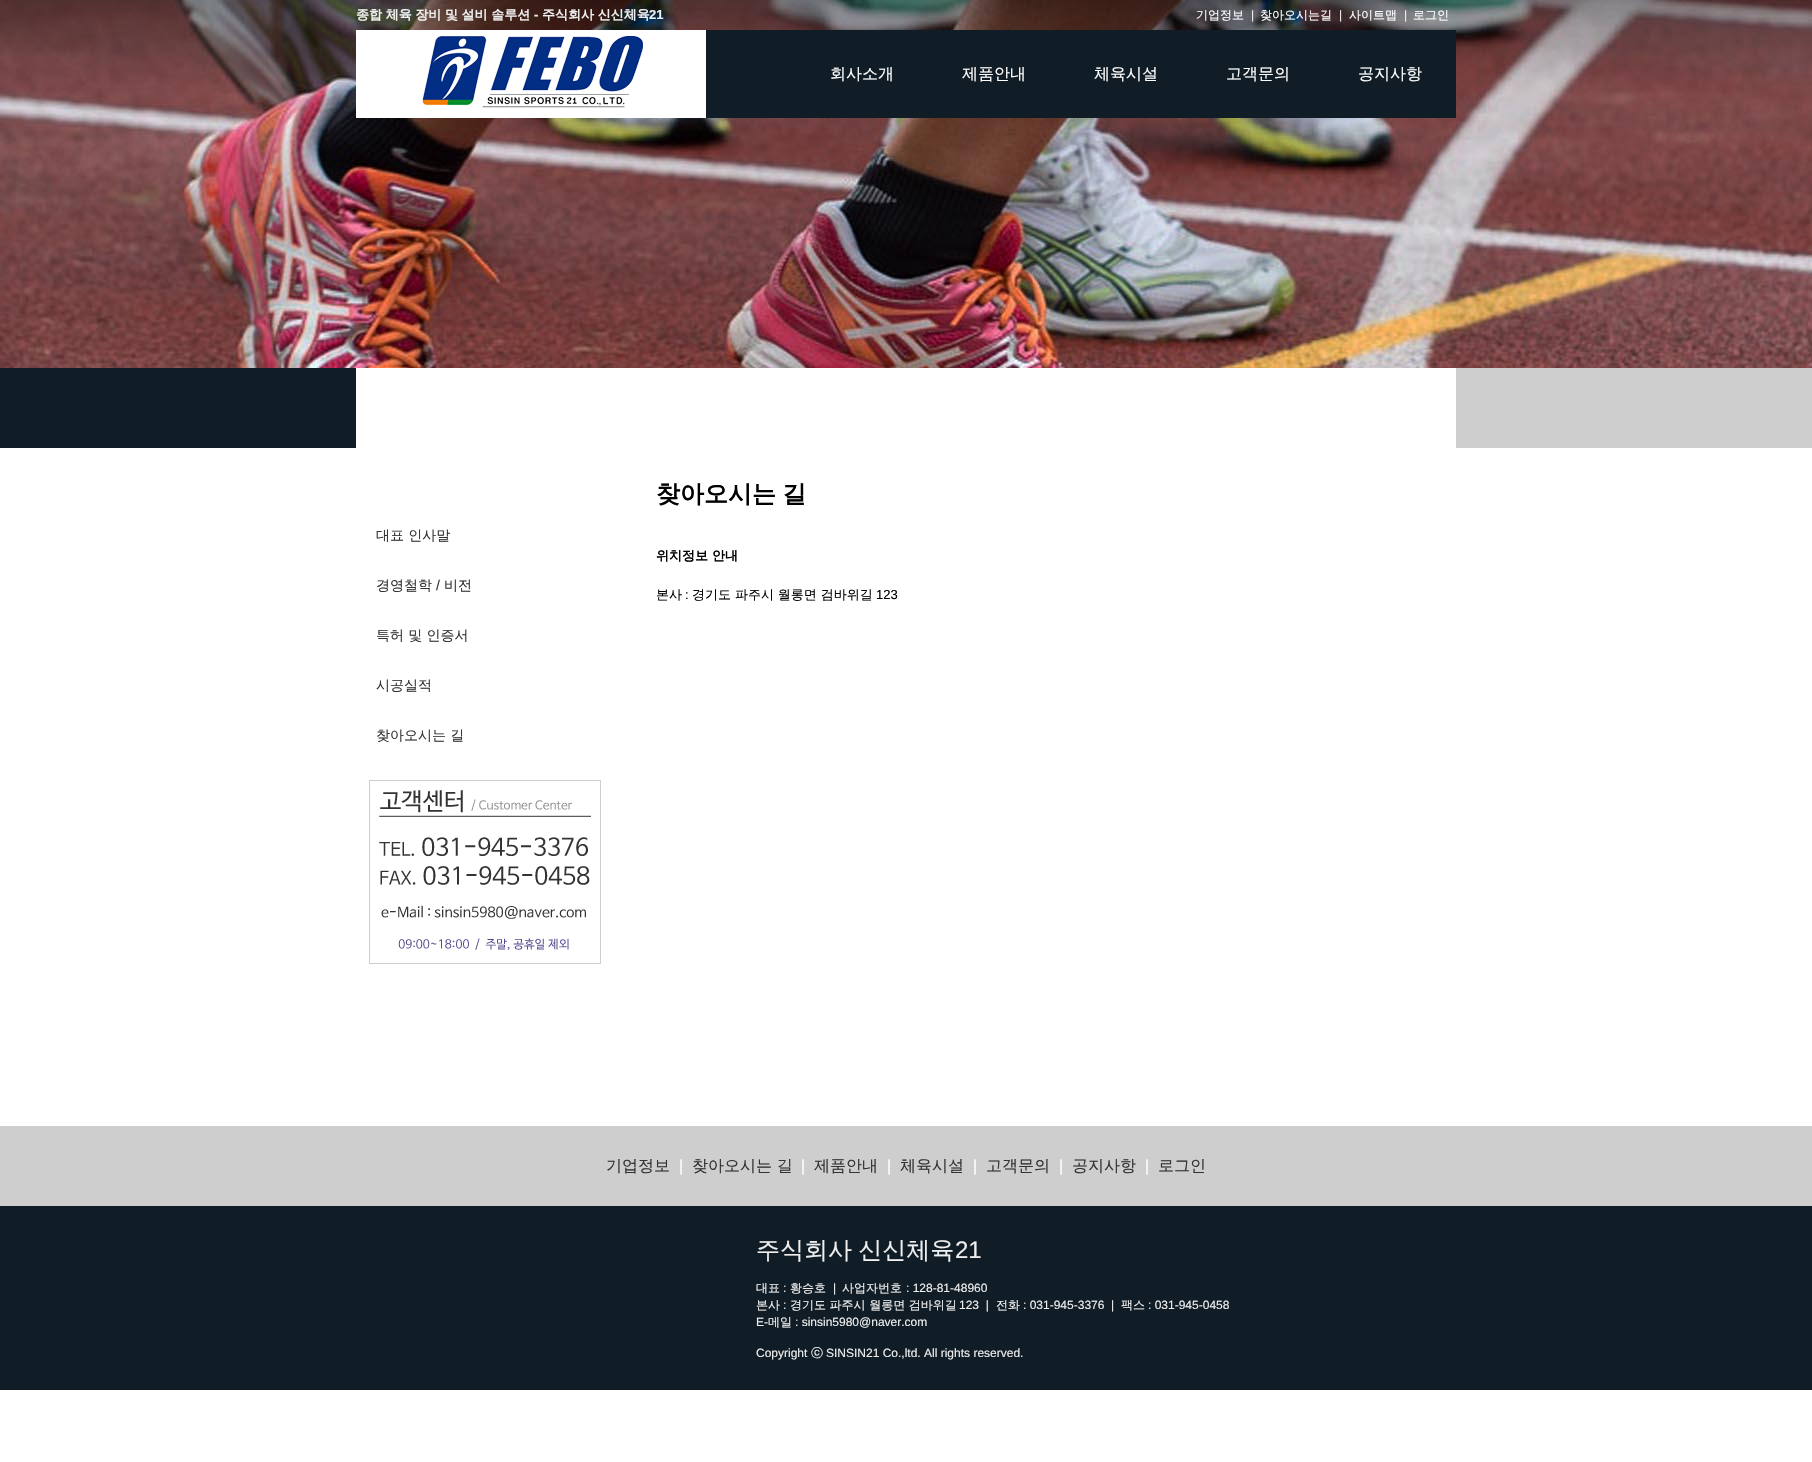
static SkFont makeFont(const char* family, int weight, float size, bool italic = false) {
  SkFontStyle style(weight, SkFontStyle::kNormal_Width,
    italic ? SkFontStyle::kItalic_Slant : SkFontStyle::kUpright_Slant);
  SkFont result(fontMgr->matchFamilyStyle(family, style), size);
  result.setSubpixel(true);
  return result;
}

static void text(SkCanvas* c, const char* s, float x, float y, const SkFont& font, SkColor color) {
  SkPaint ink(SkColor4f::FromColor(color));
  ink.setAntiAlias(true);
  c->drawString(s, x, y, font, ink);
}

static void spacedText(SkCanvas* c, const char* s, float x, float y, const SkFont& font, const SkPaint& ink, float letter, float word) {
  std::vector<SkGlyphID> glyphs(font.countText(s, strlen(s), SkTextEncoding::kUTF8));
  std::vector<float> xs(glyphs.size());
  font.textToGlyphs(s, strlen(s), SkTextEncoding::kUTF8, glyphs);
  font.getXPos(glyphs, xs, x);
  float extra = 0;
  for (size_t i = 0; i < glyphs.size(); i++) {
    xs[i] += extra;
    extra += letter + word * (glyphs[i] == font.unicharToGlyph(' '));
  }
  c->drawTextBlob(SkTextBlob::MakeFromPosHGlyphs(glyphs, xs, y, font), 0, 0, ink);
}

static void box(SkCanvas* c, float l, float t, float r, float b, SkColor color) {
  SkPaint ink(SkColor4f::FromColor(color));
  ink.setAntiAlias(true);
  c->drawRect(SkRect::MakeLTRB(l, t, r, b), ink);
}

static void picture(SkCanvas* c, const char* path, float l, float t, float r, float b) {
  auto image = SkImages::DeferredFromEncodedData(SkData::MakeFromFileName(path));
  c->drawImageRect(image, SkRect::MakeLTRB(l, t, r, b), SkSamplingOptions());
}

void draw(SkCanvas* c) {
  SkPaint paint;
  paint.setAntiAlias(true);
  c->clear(0xffffffff);
  picture(c, "img_01.png", 0, 0, 1812, 368);
  SkFont face1 = makeFont("WenQuanYi Zen Hei", 700, 13);
  paint.setColor(0xffefefef);
  spacedText(c, "종합 체육 장비 및 설비 솔루션", 356, 19, face1, paint, 0, -0.25f);
  SkFont face2 = makeFont("Liberation Sans", 700, 13);
  text(c, "-", 534, 19, face2, 0xffefefef);
  spacedText(c, "주식회사 신신체육", 542, 19, face1, paint, 0, -0.25f);
  text(c, "21", 649, 19, face2, 0xffefefef);
  SkFont face3 = makeFont("WenQuanYi Zen Hei", 500, 12);
  text(c, "기업정보", 1196, 19, face3, 0xffffffff);
  SkFont face4 = makeFont("Liberation Sans", 400, 12);
  text(c, "|", 1251, 19, face4, 0xffefefef);
  text(c, "찾아오시는길", 1260, 19, face3, 0xffffffff);
  text(c, "|", 1339, 19, face4, 0xffefefef);
  text(c, "사이트맵", 1349, 19, face3, 0xffffffff);
  text(c, "|", 1404, 19, face4, 0xffefefef);
  text(c, "로그인", 1413, 19, face3, 0xffffffff);
  box(c, 356, 30, 706, 118, 0xffffffff);
  picture(c, "img_02.png", 422, 36, 643, 108);
  box(c, 706, 30, 1456, 118, 0xff111d26);
  SkFont face5 = makeFont("WenQuanYi Zen Hei", 500, 16);
  text(c, "회사소개", 830, 79, face5, 0xffffffff);
  text(c, "제품안내", 962, 79, face5, 0xffffffff);
  text(c, "체육시설", 1094, 79, face5, 0xffffffff);
  text(c, "고객문의", 1226, 79, face5, 0xffffffff);
  text(c, "공지사항", 1358, 79, face5, 0xffffffff);
  box(c, 0, 368, 356, 448, 0xff111d26);
  box(c, 1456, 368, 1812, 448, 0xffcecece);
  SkFont face6 = makeFont("WenQuanYi Zen Hei", 500, 14);
  text(c, "대표 인사말", 376, 540, face6, 0xff333333);
  text(c, "경영철학", 376, 590, face6, 0xff333333);
  SkFont face7 = makeFont("Liberation Sans", 400, 14);
  text(c, "/", 436, 590, face7, 0xff333333);
  text(c, "비전", 444, 590, face6, 0xff333333);
  text(c, "특허 및 인증서", 376, 640, face6, 0xff333333);
  text(c, "시공실적", 376, 690, face6, 0xff333333);
  text(c, "찾아오시는 길", 376, 740, face6, 0xff333333);
  picture(c, "img_03.png", 369, 780, 601, 964);
  SkFont face8 = makeFont("WenQuanYi Zen Hei", 700, 24);
  paint.setColor(0xff000000);
  spacedText(c, "찾아오시는 길", 656, 502, face8, paint, 0, -1);
  text(c, "위치정보 안내", 656, 560, face1, 0xff000000);
  SkFont face9 = makeFont("WenQuanYi Zen Hei", 500, 13);
  text(c, "본사", 656, 599, face9, 0xff000000);
  SkFont face10 = makeFont("Liberation Sans", 400, 13);
  text(c, ":", 685, 599, face10, 0xff000000);
  text(c, "경기도 파주시 월롱면 검바위길", 692, 599, face9, 0xff000000);
  text(c, "123", 876, 599, face10, 0xff000000);
  box(c, 0, 1126, 1812, 1206, 0xffcecece);
  text(c, "기업정보", 606, 1171, face5, 0xff333333);
  SkFont face11 = makeFont("Liberation Sans", 400, 16);
  text(c, "|", 679, 1171, face11, 0xffffffff);
  text(c, "찾아오시는 길", 692, 1171, face5, 0xff333333);
  text(c, "|", 801, 1171, face11, 0xffffffff);
  text(c, "제품안내", 814, 1171, face5, 0xff333333);
  text(c, "|", 887, 1171, face11, 0xffffffff);
  text(c, "체육시설", 900, 1171, face5, 0xff333333);
  text(c, "|", 973, 1171, face11, 0xffffffff);
  text(c, "고객문의", 986, 1171, face5, 0xff333333);
  text(c, "|", 1059, 1171, face11, 0xffffffff);
  text(c, "공지사항", 1072, 1171, face5, 0xff333333);
  text(c, "|", 1145, 1171, face11, 0xffffffff);
  text(c, "로그인", 1158, 1171, face5, 0xff333333);
  box(c, 0, 1206, 1812, 1390, 0xff111d26);
  SkFont face12 = makeFont("WenQuanYi Zen Hei", 500, 24);
  paint.setColor(0xffefefef);
  spacedText(c, "주식회사 신신체육", 756, 1258, face12, paint, 0, -1);
  SkFont face13 = makeFont("Liberation Sans", 400, 24);
  text(c, "21", 955, 1258, face13, 0xffefefef);
  text(c, "대표", 756, 1292, face3, 0xffefefef);
  text(c, ":", 783, 1292, face4, 0xffefefef);
  text(c, "황승호", 790, 1292, face3, 0xffefefef);
  text(c, "|", 833, 1292, face4, 0xffefefef);
  text(c, "사업자번호", 842, 1292, face3, 0xffefefef);
  text(c, ": 128-81-48960", 906, 1292, face4, 0xffefefef);
  text(c, "본사", 756, 1309, face3, 0xffefefef);
  text(c, ":", 783, 1309, face4, 0xffefefef);
  text(c, "경기도 파주시 월롱면 검바위길", 790, 1309, face3, 0xffefefef);
  text(c, "123  |", 959, 1309, face4, 0xffefefef);
  text(c, "전화", 996, 1309, face3, 0xffefefef);
  text(c, ": 031-945-3376  |", 1023, 1309, face4, 0xffefefef);
  text(c, "팩스", 1121, 1309, face3, 0xffefefef);
  text(c, ": 031-945-0458", 1148, 1309, face4, 0xffefefef);
  text(c, "E-", 756, 1326, face4, 0xffefefef);
  text(c, "메일", 768, 1326, face3, 0xffefefef);
  text(c, ": sinsin5980@naver.com", 795, 1326, face4, 0xffefefef);
  text(c, "Copyright", 756, 1357, face4, 0xffefefef);
  text(c, "ⓒ", 811, 1357, face3, 0xffefefef);
  text(c, "SINSIN21 Co.,ltd. All rights reserved.", 826, 1357, face4, 0xffefefef);
}
